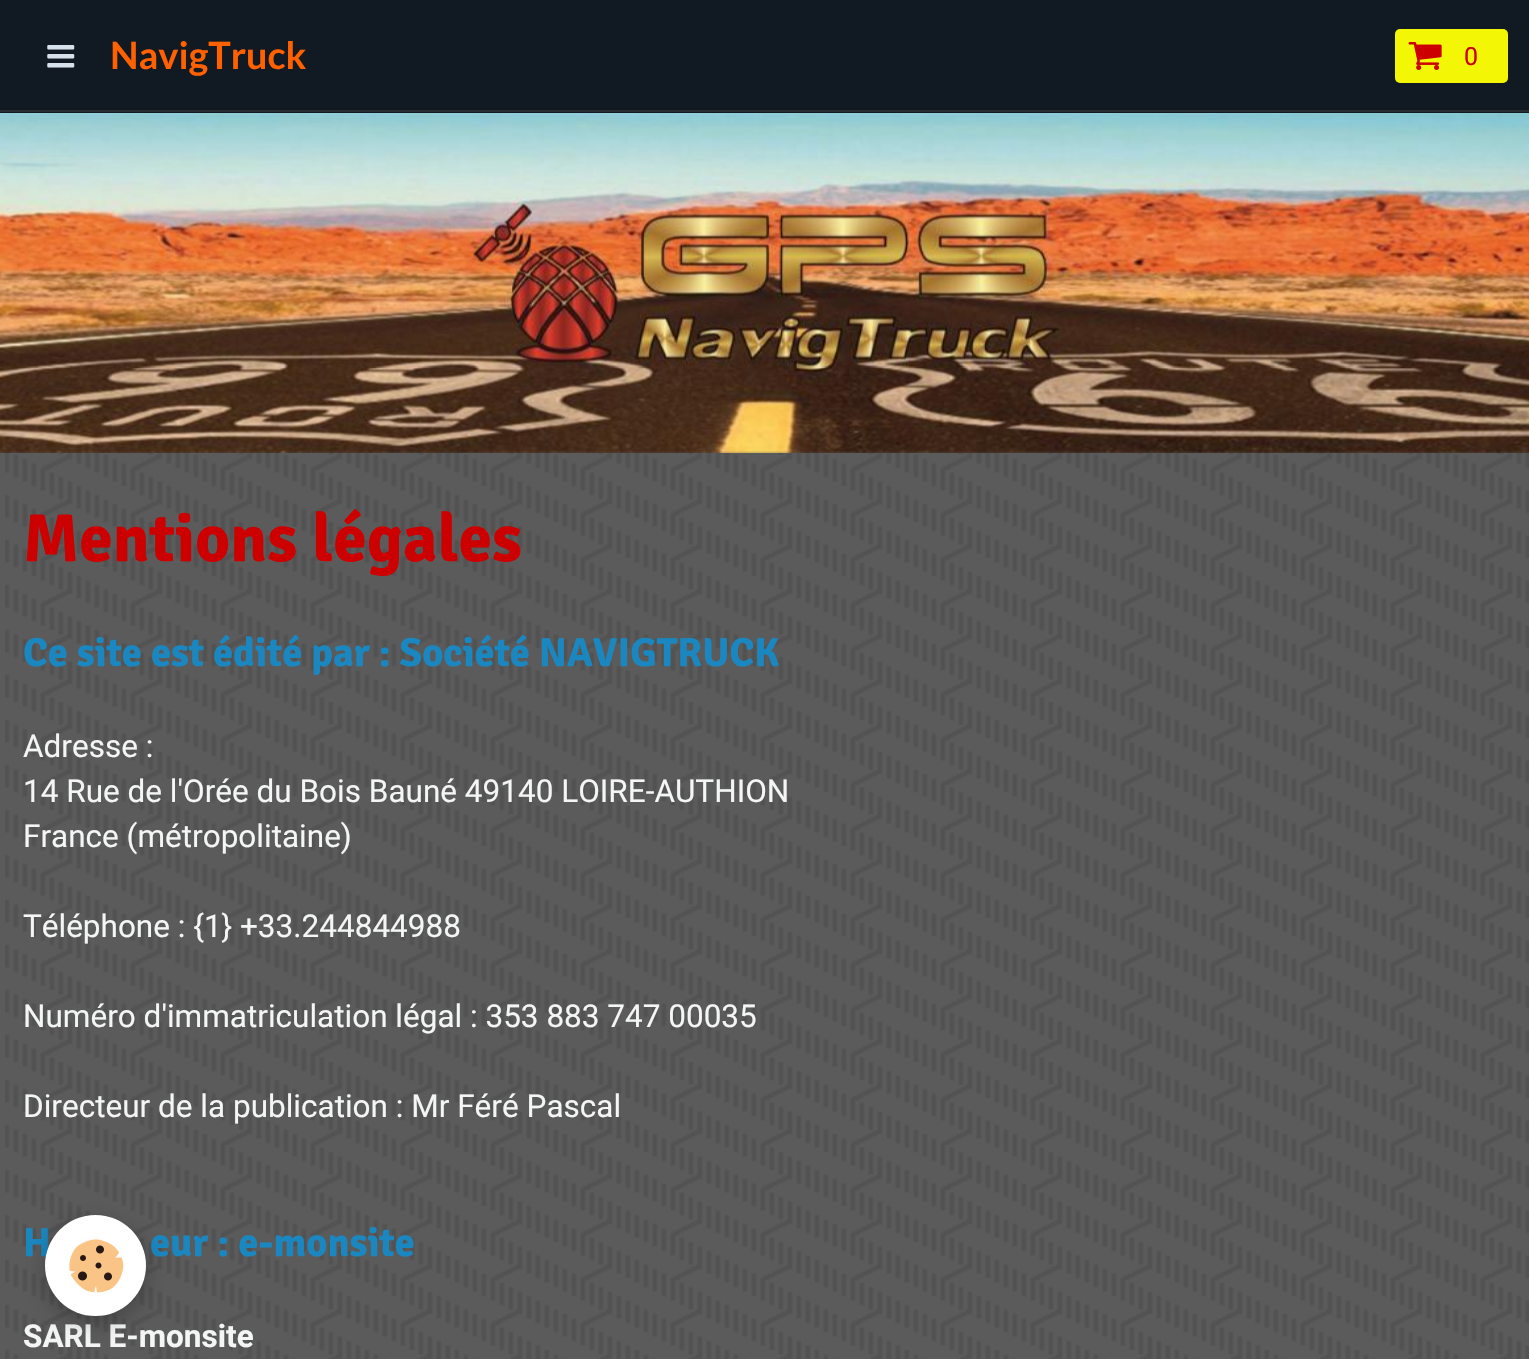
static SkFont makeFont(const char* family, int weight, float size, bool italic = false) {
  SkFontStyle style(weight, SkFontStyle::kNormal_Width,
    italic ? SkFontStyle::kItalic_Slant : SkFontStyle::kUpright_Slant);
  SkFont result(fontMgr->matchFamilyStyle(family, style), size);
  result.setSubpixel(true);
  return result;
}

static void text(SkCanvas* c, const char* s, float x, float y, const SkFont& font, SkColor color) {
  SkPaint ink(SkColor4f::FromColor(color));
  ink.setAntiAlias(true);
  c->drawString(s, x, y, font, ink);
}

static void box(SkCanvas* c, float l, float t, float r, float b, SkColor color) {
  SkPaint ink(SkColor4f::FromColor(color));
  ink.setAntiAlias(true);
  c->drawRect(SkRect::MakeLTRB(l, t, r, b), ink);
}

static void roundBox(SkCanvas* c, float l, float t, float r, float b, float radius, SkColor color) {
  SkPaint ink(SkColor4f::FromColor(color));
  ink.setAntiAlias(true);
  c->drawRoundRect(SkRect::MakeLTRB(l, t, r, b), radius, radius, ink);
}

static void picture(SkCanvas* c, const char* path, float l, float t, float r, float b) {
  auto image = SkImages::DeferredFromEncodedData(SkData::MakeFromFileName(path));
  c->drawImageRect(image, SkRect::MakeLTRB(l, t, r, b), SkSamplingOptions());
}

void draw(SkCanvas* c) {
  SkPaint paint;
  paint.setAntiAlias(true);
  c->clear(0xff5b5b5b);
  picture(c, "img_01.png", 5, 451, 1529, 1359);
  box(c, 0, 0, 1529, 113, 0xff111922);
  box(c, 0, 110, 1529, 112, 0xff282e33);
  picture(c, "img_02.png", 47, 45, 75, 68);
  SkFont face1 = makeFont("Lato", 700, 37.75f);
  text(c, "NavigTruck", 110, 69, face1, 0xffff6000);
  roundBox(c, 1395, 29, 1508, 83, 5, 0xfff3f705);
  picture(c, "img_03.png", 1408, 42, 1442, 70);
  SkFont face2 = makeFont("Roboto", 400, 25);
  text(c, "0", 1464, 65, face2, 0xffcc0000);
  picture(c, "img_04.png", 0, 113, 1529, 453);
  SkFont face3 = makeFont("Signika", 700, 67.5f);
  text(c, "Mentions légales", 23, 561, face3, 0xffcc0000);
  SkFont face4 = makeFont("Signika", 700, 40.5f);
  text(c, "Ce site est édité par : Société NAVIGTRUCK", 23, 666, face4, 0xff1a87c0);
  SkFont face5 = makeFont("Roboto", 400, 31.5f);
  text(c, "Adresse :", 23, 757, face5, 0xfff3f6f4);
  text(c, "14 Rue de l'Orée du Bois Bauné 49140 LOIRE-AUTHION", 23, 802, face5, 0xfff3f6f4);
  text(c, "France (métropolitaine)", 23, 847, face5, 0xfff3f6f4);
  text(c, "Téléphone : {1}", 23, 937, face5, 0xfff3f6f4);
  text(c, "+33.244844988", 240, 937, face5, 0xfff3f6f4);
  text(c, "Numéro d'immatriculation légal : 353 883 747 00035", 23, 1027, face5, 0xfff3f6f4);
  text(c, "Directeur de la publication : Mr Féré Pascal", 23, 1117, face5, 0xfff3f6f4);
  text(c, "H", 23, 1256, face4, 0xff1a87c0);
  text(c, "eur : e-monsite", 150, 1256, face4, 0xff1a87c0);
  SkFont face6 = makeFont("Roboto", 700, 31.5f);
  text(c, "SARL E-monsite", 23, 1347, face6, 0xfff3f6f4);
  paint.setColor(0x3d000000);
  paint.setMaskFilter(SkMaskFilter::MakeBlur(kNormal_SkBlurStyle, 11));
  c->drawRoundRect(SkRect::MakeLTRB(45, 1222, 146, 1323), 50.5f, 50.5f, paint);
  paint.setMaskFilter(nullptr);
  paint.setColor(0xffffffff);
  c->drawCircle(95.5f, 1265.5f, 50.5f, paint);
  picture(c, "img_05.png", 69, 1239, 124, 1293);
}
